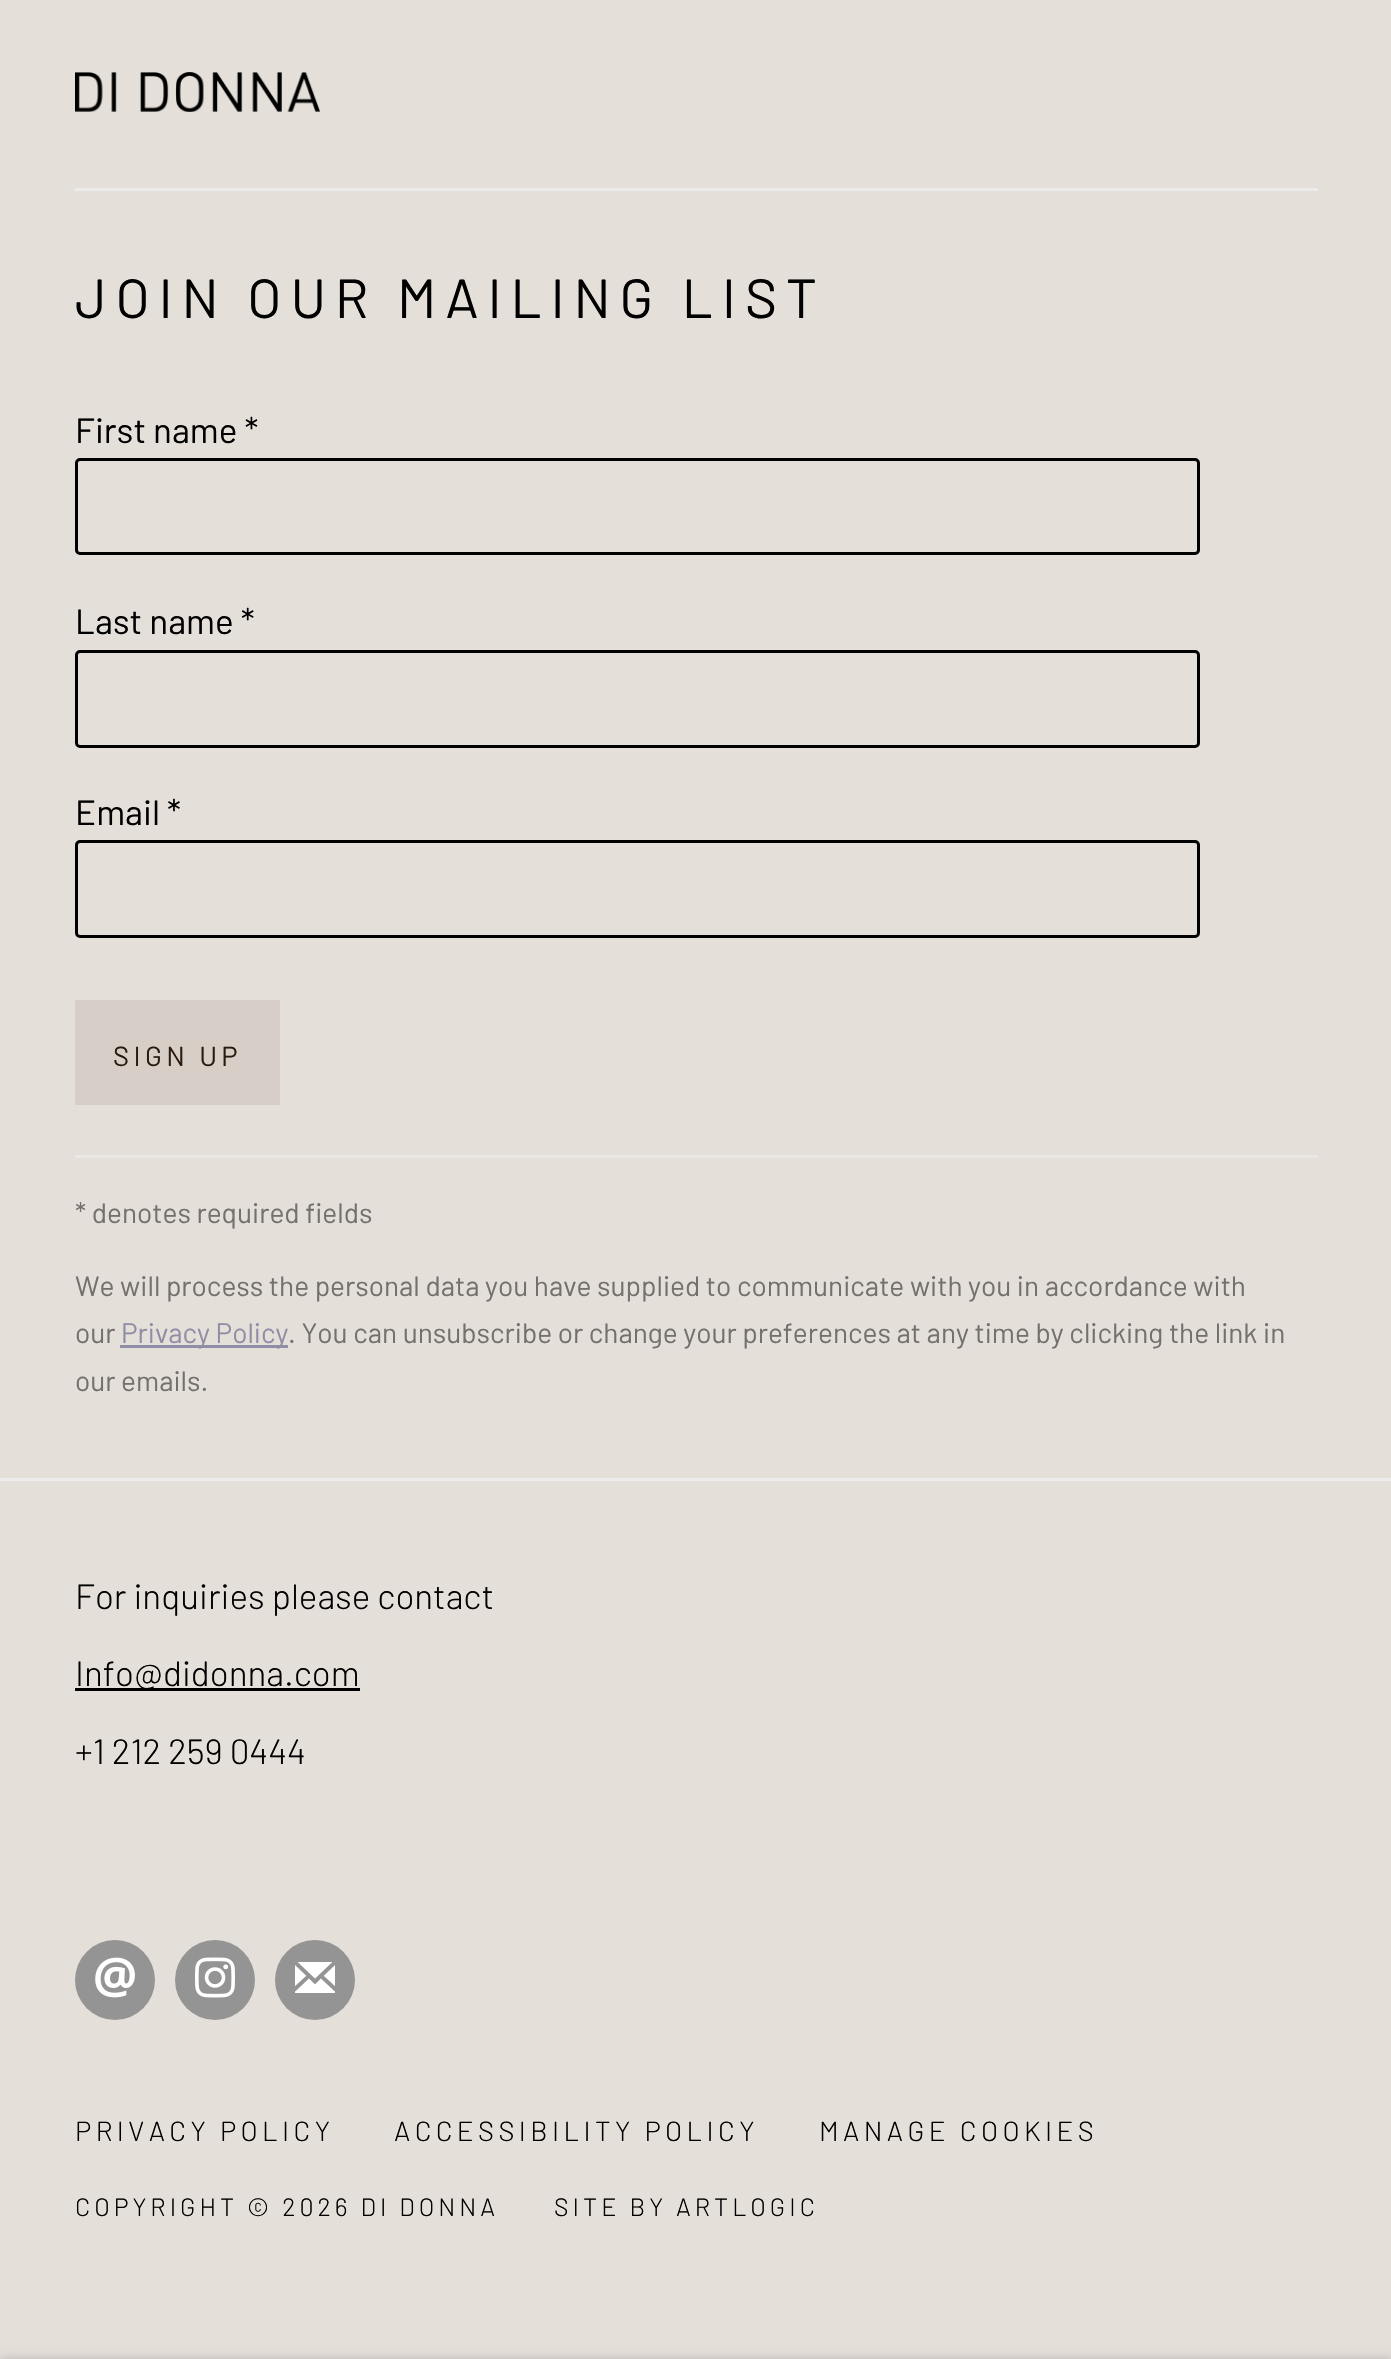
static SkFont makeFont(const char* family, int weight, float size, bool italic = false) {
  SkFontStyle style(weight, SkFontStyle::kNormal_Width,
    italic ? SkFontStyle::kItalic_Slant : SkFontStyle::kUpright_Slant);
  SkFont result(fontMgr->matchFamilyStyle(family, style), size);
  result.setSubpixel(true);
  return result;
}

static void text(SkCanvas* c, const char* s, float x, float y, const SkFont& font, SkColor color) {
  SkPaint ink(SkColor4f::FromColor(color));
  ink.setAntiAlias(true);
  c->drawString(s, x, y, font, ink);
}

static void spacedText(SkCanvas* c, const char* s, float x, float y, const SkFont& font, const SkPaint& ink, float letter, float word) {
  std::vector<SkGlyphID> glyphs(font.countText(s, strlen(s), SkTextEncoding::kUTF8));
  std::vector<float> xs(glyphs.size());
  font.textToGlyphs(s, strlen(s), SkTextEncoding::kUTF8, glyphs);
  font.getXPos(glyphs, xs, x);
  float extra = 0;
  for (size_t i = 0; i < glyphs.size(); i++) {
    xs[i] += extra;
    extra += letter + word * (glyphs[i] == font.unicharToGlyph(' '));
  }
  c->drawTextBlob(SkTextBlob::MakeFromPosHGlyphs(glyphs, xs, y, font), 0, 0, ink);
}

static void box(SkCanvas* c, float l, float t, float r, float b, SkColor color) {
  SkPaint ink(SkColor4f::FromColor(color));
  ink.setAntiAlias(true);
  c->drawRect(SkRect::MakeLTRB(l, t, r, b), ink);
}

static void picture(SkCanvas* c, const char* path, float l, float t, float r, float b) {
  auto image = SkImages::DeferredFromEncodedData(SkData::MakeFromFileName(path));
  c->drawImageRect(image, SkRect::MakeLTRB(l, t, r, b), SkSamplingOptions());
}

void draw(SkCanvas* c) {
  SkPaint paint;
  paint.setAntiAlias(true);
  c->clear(0xffe5dfd9);
  box(c, 75, 188, 1318, 191, 0xffebebeb);
  picture(c, "img_01.png", 75, 72, 320, 112);
  SkFont face1 = makeFont("Barlow", 400, 55);
  paint.setColor(0xff000000);
  spacedText(c, "JOIN OUR MAILING LIST", 75, 318, face1, paint, 8.8f, 0);
  SkFont face2 = makeFont("Barlow", 400, 35);
  text(c, "First name *", 75, 443, face2, 0xff000000);
  paint.setStyle(SkPaint::kStroke_Style);
  paint.setStrokeWidth(3);
  c->drawRoundRect(SkRect::MakeLTRB(76.5f, 459.5f, 1198.5f, 553.5f), 3.5f, 3.5f, paint);
  text(c, "Last name *", 75, 634, face2, 0xff000000);
  c->drawRoundRect(SkRect::MakeLTRB(76.5f, 651.5f, 1198.5f, 746.5f), 3.5f, 3.5f, paint);
  text(c, "Email *", 75, 825, face2, 0xff000000);
  c->drawRoundRect(SkRect::MakeLTRB(76.5f, 841.5f, 1198.5f, 936.5f), 3.5f, 3.5f, paint);
  box(c, 75, 1000, 280, 1105, 0xffd7cfc7);
  SkFont face3 = makeFont("Barlow", 400, 27.5f);
  paint.setStyle(SkPaint::kFill_Style);
  paint.setColor(0xff291b0d);
  spacedText(c, "SIGN UP", 113, 1066, face3, paint, 4.4f, 0);
  box(c, 75, 1155, 1318, 1158, 0xffeae7e4);
  SkFont face4 = makeFont("Barlow", 400, 28);
  text(c, "* denotes required fields", 75, 1223, face4, 0xff73706d);
  text(c, "We will process the personal data you have supplied to communicate with you in accordance with", 75, 1296, face4, 0xff73706d);
  text(c, "our", 75, 1343, face4, 0xff73706d);
  box(c, 120, 1345, 288, 1348, 0xff908da6);
  text(c, "Privacy Policy", 121, 1343, face4, 0xff908da6);
  text(c, ". You can unsubscribe or change your preferences at any time by clicking the link in", 288, 1343, face4, 0xff73706d);
  text(c, "our emails.", 75, 1391, face4, 0xff73706d);
  box(c, 0, 1478, 1391, 1481, 0xffebebeb);
  SkFont face5 = makeFont("Barlow", 300, 35);
  text(c, "For inquiries please contact", 75, 1609, face5, 0xff000000);
  box(c, 75, 1688, 360, 1691, 0xff000000);
  text(c, "Info@didonna.com", 75, 1686, face5, 0xff000000);
  text(c, "+1 212 259 0444", 75, 1764, face5, 0xff000000);
  paint.setColor(0xff949494);
  c->drawCircle(115, 1980, 40, paint);
  picture(c, "img_02.png", 95, 1957, 135, 1998);
  c->drawCircle(215, 1980, 40, paint);
  picture(c, "img_03.png", 195, 1957, 235, 1998);
  c->drawCircle(315, 1980, 40, paint);
  picture(c, "img_04.png", 295, 1962, 335, 1993);
  SkFont face6 = makeFont("Barlow", 300, 27.5f);
  paint.setColor(0xff000000);
  spacedText(c, "PRIVACY POLICY", 75, 2141, face6, paint, 4.4f, 0);
  spacedText(c, "ACCESSIBILITY POLICY", 394, 2141, face6, paint, 4.4f, 0);
  spacedText(c, "MANAGE COOKIES", 819, 2141, face6, paint, 4.4f, 0);
  SkFont face7 = makeFont("Barlow", 300, 25);
  spacedText(c, "COPYRIGHT © 2026 DI DONNA", 75, 2216, face7, paint, 4, 0);
  spacedText(c, "SITE BY ARTLOGIC", 554, 2216, face7, paint, 4, 0);
  paint.setColor(0x3b000000);
  paint.setMaskFilter(SkMaskFilter::MakeBlur(kNormal_SkBlurStyle, 6));
  c->drawRect(SkRect::MakeLTRB(0, 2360, 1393, 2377), paint);
  paint.setMaskFilter(nullptr);
}
